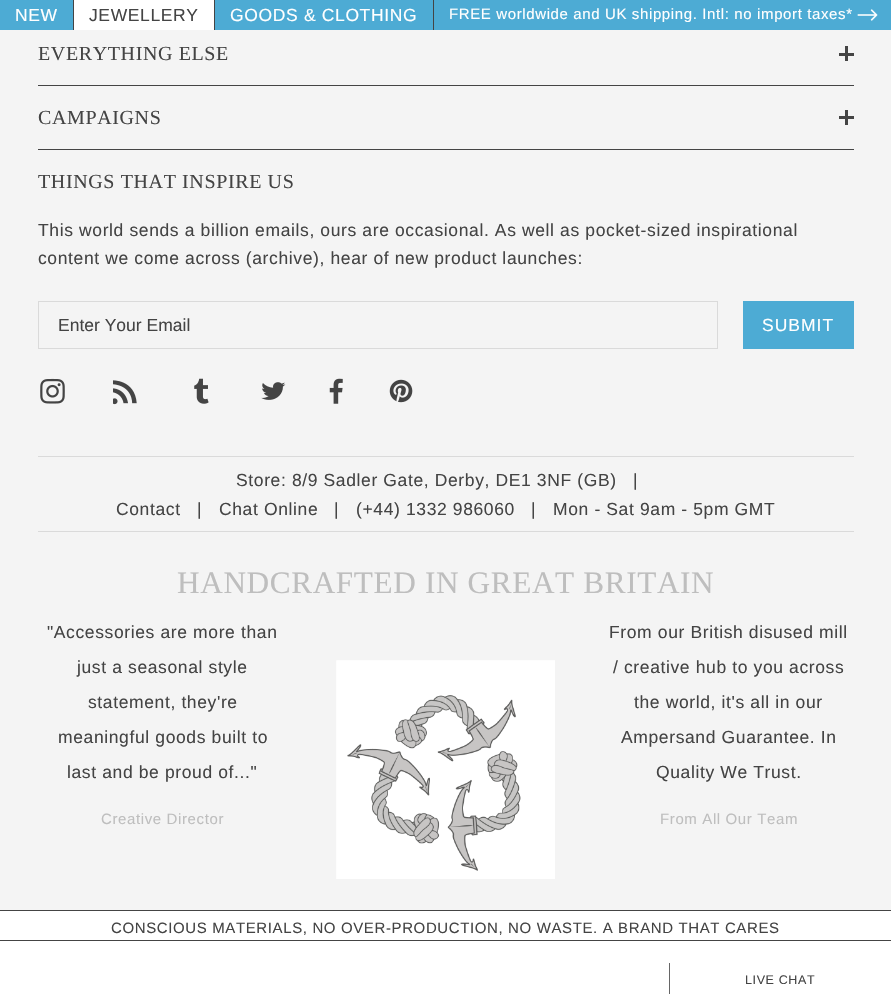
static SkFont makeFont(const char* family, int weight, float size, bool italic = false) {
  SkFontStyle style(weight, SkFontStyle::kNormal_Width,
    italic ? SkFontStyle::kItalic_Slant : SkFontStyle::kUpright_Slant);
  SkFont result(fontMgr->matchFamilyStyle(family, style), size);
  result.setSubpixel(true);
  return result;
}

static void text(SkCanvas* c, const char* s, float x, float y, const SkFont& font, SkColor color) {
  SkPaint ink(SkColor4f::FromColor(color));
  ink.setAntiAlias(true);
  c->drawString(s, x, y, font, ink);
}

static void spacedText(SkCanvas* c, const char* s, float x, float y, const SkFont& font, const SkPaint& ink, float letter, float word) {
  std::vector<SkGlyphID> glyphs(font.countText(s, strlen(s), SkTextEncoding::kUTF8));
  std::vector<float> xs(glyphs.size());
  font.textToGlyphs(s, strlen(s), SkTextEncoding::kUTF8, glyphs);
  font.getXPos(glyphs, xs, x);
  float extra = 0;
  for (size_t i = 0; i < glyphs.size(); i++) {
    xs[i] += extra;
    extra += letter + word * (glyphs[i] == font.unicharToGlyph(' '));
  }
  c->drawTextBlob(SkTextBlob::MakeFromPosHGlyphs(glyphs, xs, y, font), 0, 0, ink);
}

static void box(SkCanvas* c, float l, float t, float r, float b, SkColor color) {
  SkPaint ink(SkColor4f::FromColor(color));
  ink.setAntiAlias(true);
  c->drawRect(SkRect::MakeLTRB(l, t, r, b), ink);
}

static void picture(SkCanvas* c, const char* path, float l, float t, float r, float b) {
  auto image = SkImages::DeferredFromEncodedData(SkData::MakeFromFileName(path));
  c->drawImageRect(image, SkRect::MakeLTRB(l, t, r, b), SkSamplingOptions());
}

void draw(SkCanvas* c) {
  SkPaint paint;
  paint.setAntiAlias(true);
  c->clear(0xfff4f4f4);
  box(c, 0, 0, 891, 30, 0xff4dabd4);
  box(c, 73, 0, 74, 30, 0xff444444);
  SkFont face1 = makeFont("Liberation Sans", 400, 17.5f);
  paint.setColor(0xffffffff);
  spacedText(c, "NEW", 15, 21, face1, paint, 0.62f, 0);
  box(c, 74, 0, 214, 30, 0xffffffff);
  box(c, 214, 0, 215, 30, 0xff444444);
  paint.setColor(0xff444444);
  spacedText(c, "JEWELLERY", 89, 21, face1, paint, 0.62f, 0);
  box(c, 433, 0, 434, 30, 0xff444444);
  paint.setColor(0xffffffff);
  spacedText(c, "GOODS", 230, 21, face1, paint, 0.62f, 0);
  spacedText(c, "& CLOTHING", 304, 21, face1, paint, 0.62f, 0);
  SkFont face2 = makeFont("Liberation Sans", 400, 15);
  spacedText(c, "FREE worldwide and UK shipping. Intl: no import taxes*", 449, 19, face2, paint, 0.62f, 0);
  picture(c, "img_01.png", 857, 9, 878, 21);
  box(c, 38, 85, 854, 86, 0xff444444);
  SkFont face3 = makeFont("Liberation Serif", 400, 20);
  paint.setColor(0xff444444);
  spacedText(c, "EVERYTHING ELSE", 38, 60, face3, paint, 0.62f, 0);
  box(c, 845, 46, 848, 61, 0xff444444);
  box(c, 839, 53, 854, 56, 0xff444444);
  box(c, 38, 149, 854, 150, 0xff444444);
  spacedText(c, "CAMPAIGNS", 38, 124, face3, paint, 0.62f, 0);
  box(c, 845, 110, 848, 125, 0xff444444);
  box(c, 839, 116, 854, 119, 0xff444444);
  spacedText(c, "THINGS THAT INSPIRE US", 38, 188, face3, paint, 0.62f, 0);
  spacedText(c, "This world sends a billion emails, ours are occasional. As well as pocket-sized inspirational", 38, 236, face1, paint, 0.62f, 0);
  spacedText(c, "content we come across (archive), hear of new product launches:", 38, 264, face1, paint, 0.62f, 0);
  paint.setStyle(SkPaint::kStroke_Style);
  paint.setStrokeWidth(1);
  paint.setColor(0xffdadada);
  c->drawRect(SkRect::MakeLTRB(38.5f, 301.5f, 717.5f, 348.5f), paint);
  text(c, "Enter Your Email", 58, 331, face1, 0xff444444);
  box(c, 743, 301, 854, 349, 0xff4dabd4);
  paint.setStyle(SkPaint::kFill_Style);
  paint.setColor(0xffffffff);
  spacedText(c, "SUBMIT", 762, 331, face1, paint, 1, 0);
  picture(c, "img_02.png", 40, 378, 65, 404);
  picture(c, "img_03.png", 113, 380, 137, 405);
  picture(c, "img_04.png", 194, 378, 209, 404);
  picture(c, "img_05.png", 261, 382, 286, 400);
  picture(c, "img_06.png", 329, 378, 343, 404);
  picture(c, "img_07.png", 389, 379, 413, 403);
  box(c, 38, 456, 854, 457, 0xffdadada);
  box(c, 38, 531, 854, 532, 0xffdadada);
  paint.setColor(0xff444444);
  spacedText(c, "Store: 8/9 Sadler Gate, Derby, DE1 3NF (GB)", 236, 486, face1, paint, 0.62f, 0);
  spacedText(c, "|", 633, 486, face1, paint, 0.62f, 0);
  spacedText(c, "Contact", 116, 515, face1, paint, 0.62f, 0);
  spacedText(c, "|", 197, 515, face1, paint, 0.62f, 0);
  spacedText(c, "Chat Online", 219, 515, face1, paint, 0.62f, 0);
  spacedText(c, "|", 334, 515, face1, paint, 0.62f, 0);
  spacedText(c, "(+44) 1332 986060", 356, 515, face1, paint, 0.62f, 0);
  spacedText(c, "|", 531, 515, face1, paint, 0.62f, 0);
  spacedText(c, "Mon - Sat 9am - 5pm GMT", 553, 515, face1, paint, 0.62f, 0);
  SkFont face4 = makeFont("Liberation Serif", 400, 31.25f);
  paint.setColor(0xffbebebe);
  spacedText(c, "HANDCRAFTED IN GREAT BRITAIN", 177, 593, face4, paint, 0.62f, 0);
  paint.setColor(0xff444444);
  spacedText(c, "\"Accessories are more than", 47, 638, face1, paint, 0.62f, 0);
  spacedText(c, "just a seasonal style", 77, 673, face1, paint, 0.62f, 0);
  spacedText(c, "statement, they're", 88, 708, face1, paint, 0.62f, 0);
  spacedText(c, "meaningful goods built to", 58, 743, face1, paint, 0.62f, 0);
  spacedText(c, "last and be proud of...\"", 67, 778, face1, paint, 0.62f, 0);
  paint.setColor(0xffbebebe);
  spacedText(c, "Creative Director", 101, 824, face2, paint, 0.62f, 0);
  picture(c, "img_08.png", 336, 660, 555, 879);
  paint.setColor(0xff444444);
  spacedText(c, "From our British disused mill", 609, 638, face1, paint, 0.62f, 0);
  spacedText(c, "/ creative hub to you across", 613, 673, face1, paint, 0.62f, 0);
  spacedText(c, "the world, it's all in our", 634, 708, face1, paint, 0.62f, 0);
  spacedText(c, "Ampersand Guarantee. In", 621, 743, face1, paint, 0.62f, 0);
  spacedText(c, "Quality We Trust.", 656, 778, face1, paint, 0.62f, 0);
  paint.setColor(0xffbebebe);
  spacedText(c, "From All Our Team", 660, 824, face2, paint, 0.62f, 0);
  box(c, 0, 911, 891, 940, 0xffffffff);
  box(c, 0, 910, 891, 911, 0xff444444);
  box(c, 0, 940, 891, 941, 0xff444444);
  paint.setColor(0xff444444);
  spacedText(c, "CONSCIOUS MATERIALS, NO OVER-PRODUCTION, NO WASTE. A BRAND THAT CARES", 111, 933, face2, paint, 0.62f, 0);
  box(c, 0, 941, 891, 994, 0xffffffff);
  box(c, 669, 963, 670, 994, 0xff666666);
  SkFont face5 = makeFont("Liberation Sans", 400, 12.5f);
  spacedText(c, "LIVE CHAT", 745, 984, face5, paint, 0.62f, 0);
}
